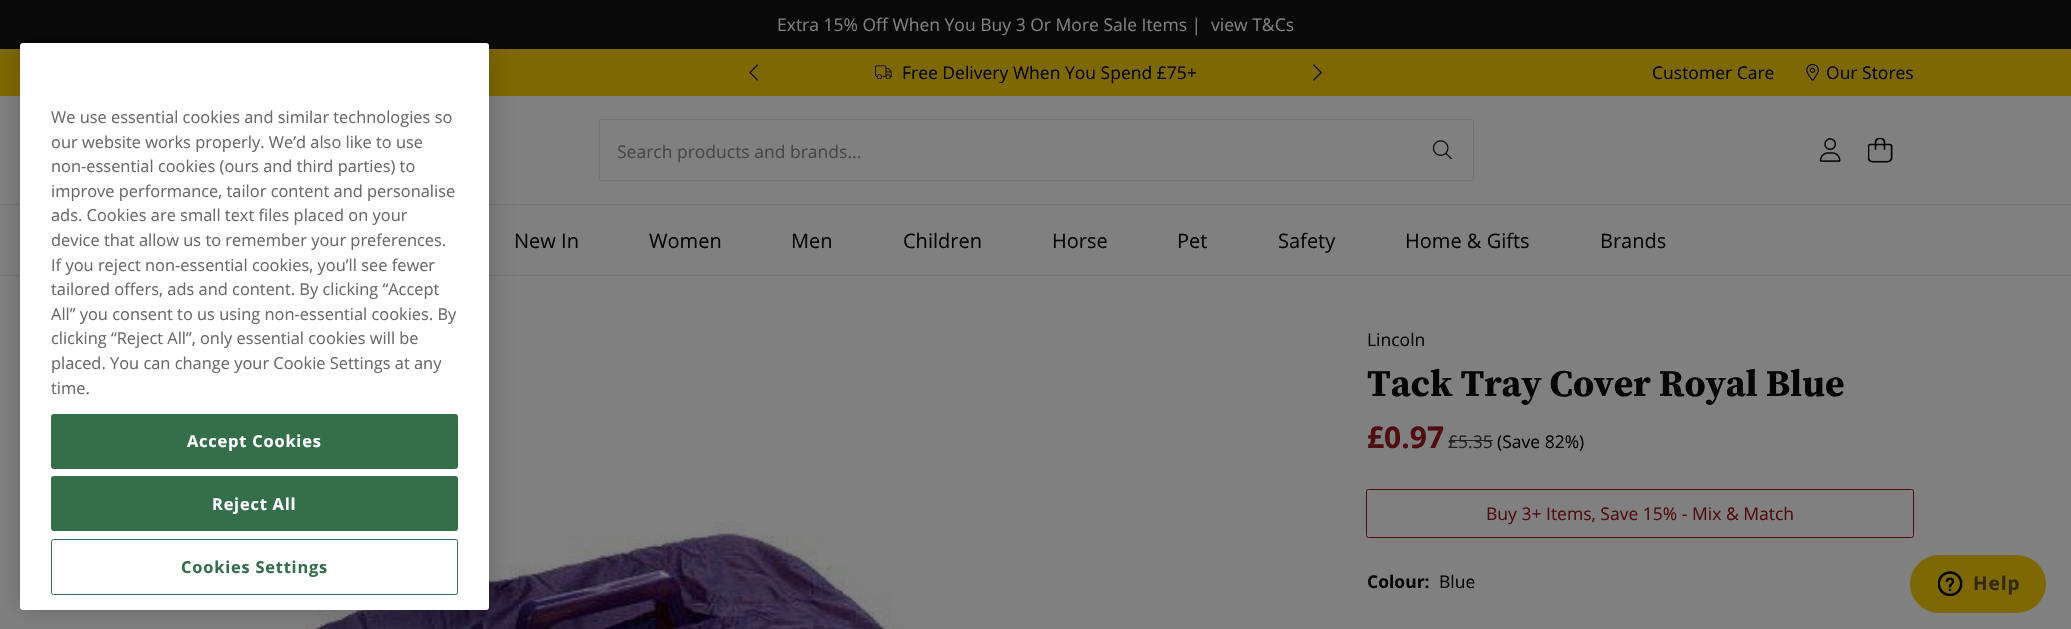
static SkFont makeFont(const char* family, int weight, float size, bool italic = false) {
  SkFontStyle style(weight, SkFontStyle::kNormal_Width,
    italic ? SkFontStyle::kItalic_Slant : SkFontStyle::kUpright_Slant);
  SkFont result(fontMgr->matchFamilyStyle(family, style), size);
  result.setSubpixel(true);
  return result;
}

static void text(SkCanvas* c, const char* s, float x, float y, const SkFont& font, SkColor color) {
  SkPaint ink(SkColor4f::FromColor(color));
  ink.setAntiAlias(true);
  c->drawString(s, x, y, font, ink);
}

static void spacedText(SkCanvas* c, const char* s, float x, float y, const SkFont& font, const SkPaint& ink, float letter, float word) {
  std::vector<SkGlyphID> glyphs(font.countText(s, strlen(s), SkTextEncoding::kUTF8));
  std::vector<float> xs(glyphs.size());
  font.textToGlyphs(s, strlen(s), SkTextEncoding::kUTF8, glyphs);
  font.getXPos(glyphs, xs, x);
  float extra = 0;
  for (size_t i = 0; i < glyphs.size(); i++) {
    xs[i] += extra;
    extra += letter + word * (glyphs[i] == font.unicharToGlyph(' '));
  }
  c->drawTextBlob(SkTextBlob::MakeFromPosHGlyphs(glyphs, xs, y, font), 0, 0, ink);
}

static void box(SkCanvas* c, float l, float t, float r, float b, SkColor color) {
  SkPaint ink(SkColor4f::FromColor(color));
  ink.setAntiAlias(true);
  c->drawRect(SkRect::MakeLTRB(l, t, r, b), ink);
}

static void roundBox(SkCanvas* c, float l, float t, float r, float b, float radius, SkColor color) {
  SkPaint ink(SkColor4f::FromColor(color));
  ink.setAntiAlias(true);
  c->drawRoundRect(SkRect::MakeLTRB(l, t, r, b), radius, radius, ink);
}

static void picture(SkCanvas* c, const char* path, float l, float t, float r, float b) {
  auto image = SkImages::DeferredFromEncodedData(SkData::MakeFromFileName(path));
  c->drawImageRect(image, SkRect::MakeLTRB(l, t, r, b), SkSamplingOptions());
}

void draw(SkCanvas* c) {
  SkPaint paint;
  paint.setAntiAlias(true);
  c->clear(0xff808080);
  box(c, 0, 0, 2071, 49, 0xff090909);
  SkFont face1 = makeFont("Open Sans", 400, 17.5f);
  text(c, "Extra 15% Off When You Buy 3 Or More Sale Items |", 777, 31, face1, 0xff808080);
  text(c, "view T&Cs", 1211, 31, face1, 0xff808080);
  box(c, 0, 49, 2071, 96, 0xff7e6803);
  picture(c, "img_01.png", 749, 64, 758, 81);
  picture(c, "img_02.png", 1313, 64, 1322, 81);
  picture(c, "img_03.png", 875, 65, 893, 79);
  text(c, "Free Delivery When You Spend £75+", 902, 79, face1, 0xff050505);
  text(c, "Customer Care", 1652, 79, face1, 0xff050505);
  picture(c, "img_04.png", 1806, 64, 1819, 81);
  text(c, "Our Stores", 1826, 79, face1, 0xff050505);
  box(c, 0, 204, 2071, 205, 0xff737373);
  box(c, 0, 275, 2071, 276, 0xff737373);
  picture(c, "img_08.png", 304, 521, 904, 629);
  paint.setColor(0x33000000);
  paint.setMaskFilter(SkMaskFilter::MakeBlur(kNormal_SkBlurStyle, 11));
  c->drawRoundRect(SkRect::MakeLTRB(20, 43, 489, 610), 3, 3, paint);
  paint.setMaskFilter(nullptr);
  roundBox(c, 20, 43, 489, 610, 3, 0xffffffff);
  SkFont face2 = makeFont("Open Sans", 400, 16.4f);
  text(c, "We use essential cookies and similar technologies so", 51, 123, face2, 0xff696969);
  text(c, "our website works properly. We’d also like to use", 51, 148, face2, 0xff696969);
  text(c, "non-essential cookies (ours and third parties) to", 51, 172, face2, 0xff696969);
  text(c, "improve performance, tailor content and personalise", 51, 197, face2, 0xff696969);
  text(c, "ads. Cookies are small text files placed on your", 51, 221, face2, 0xff696969);
  text(c, "device that allow us to remember your preferences.", 51, 246, face2, 0xff696969);
  text(c, "If you reject non-essential cookies, you’ll see fewer", 51, 271, face2, 0xff696969);
  text(c, "tailored offers, ads and content. By clicking “Accept", 51, 295, face2, 0xff696969);
  text(c, "All” you consent to us using non-essential cookies. By", 51, 320, face2, 0xff696969);
  text(c, "clicking “Reject All”, only essential cookies will be", 51, 344, face2, 0xff696969);
  text(c, "placed. You can change your Cookie Settings at any", 51, 369, face2, 0xff696969);
  text(c, "time.", 51, 394, face2, 0xff696969);
  paint.setColor(0xff346e4a);
  c->drawRoundRect(SkRect::MakeLTRB(51.5f, 414.5f, 457.5f, 468.5f), 2, 2, paint);
  paint.setStyle(SkPaint::kStroke_Style);
  paint.setStrokeWidth(1);
  c->drawRoundRect(SkRect::MakeLTRB(51.5f, 414.5f, 457.5f, 468.5f), 2, 2, paint);
  SkFont face3 = makeFont("Open Sans", 700, 16.4f);
  paint.setStyle(SkPaint::kFill_Style);
  paint.setColor(0xffffffff);
  spacedText(c, "Accept Cookies", 187, 447, face3, paint, 0.8f, 0);
  paint.setColor(0xff346e4a);
  c->drawRoundRect(SkRect::MakeLTRB(51.5f, 476.5f, 457.5f, 530.5f), 2, 2, paint);
  paint.setStyle(SkPaint::kStroke_Style);
  c->drawRoundRect(SkRect::MakeLTRB(51.5f, 476.5f, 457.5f, 530.5f), 2, 2, paint);
  paint.setStyle(SkPaint::kFill_Style);
  paint.setColor(0xffffffff);
  spacedText(c, "Reject All", 212, 510, face3, paint, 0.8f, 0);
  paint.setStyle(SkPaint::kStroke_Style);
  paint.setColor(0xff346e4a);
  c->drawRoundRect(SkRect::MakeLTRB(51.5f, 539.5f, 457.5f, 594.5f), 2, 2, paint);
  paint.setStyle(SkPaint::kFill_Style);
  spacedText(c, "Cookies Settings", 181, 573, face3, paint, 0.8f, 0);
  paint.setStyle(SkPaint::kStroke_Style);
  paint.setColor(0xff737373);
  c->drawRoundRect(SkRect::MakeLTRB(599.5f, 119.5f, 1473.5f, 180.5f), 2, 2, paint);
  text(c, "Search products and brands...", 617, 158, face1, 0xff464646);
  picture(c, "img_05.png", 1433, 140, 1452, 159);
  picture(c, "img_06.png", 1819, 138, 1841, 162);
  picture(c, "img_07.png", 1868, 138, 1893, 163);
  SkFont face4 = makeFont("Open Sans", 400, 20);
  text(c, "New In", 514, 248, face4, 0xff050505);
  text(c, "Women", 649, 248, face4, 0xff050505);
  text(c, "Men", 791, 248, face4, 0xff050505);
  text(c, "Children", 903, 248, face4, 0xff050505);
  text(c, "Horse", 1052, 248, face4, 0xff050505);
  text(c, "Pet", 1177, 248, face4, 0xff050505);
  text(c, "Safety", 1278, 248, face4, 0xff050505);
  text(c, "Home & Gifts", 1405, 248, face4, 0xff050505);
  text(c, "Brands", 1600, 248, face4, 0xff050505);
  text(c, "Lincoln", 1367, 346, face1, 0xff050505);
  SkFont face5 = makeFont("Source Serif Pro", 700, 37.5f);
  text(c, "Tack Tray Cover Royal Blue", 1367, 396, face5, 0xff050505);
  SkFont face6 = makeFont("Open Sans", 700, 30);
  text(c, "£0.97", 1367, 448, face6, 0xff4f0c11);
  text(c, "£5.35", 1448, 448, face1, 0xff202020);
  box(c, 1449, 440, 1493, 441, 0xff202020);
  text(c, "(Save 82%)", 1497, 448, face1, 0xff050505);
  paint.setColor(0xff4f0c11);
  c->drawRoundRect(SkRect::MakeLTRB(1366.5f, 489.5f, 1913.5f, 537.5f), 2, 2, paint);
  text(c, "Buy 3+ Items, Save 15% - Mix & Match", 1486, 520, face1, 0xff4f0c11);
  SkFont face7 = makeFont("Open Sans", 700, 17.5f);
  text(c, "Colour:", 1367, 588, face7, 0xff050505);
  text(c, "Blue", 1439, 588, face1, 0xff050505);
  roundBox(c, 1910, 555, 2046, 613, 29, 0xff7e6803);
  picture(c, "img_09.png", 1938, 571, 1963, 596);
  SkFont face8 = makeFont("Noto Sans", 700, 19);
  paint.setStyle(SkPaint::kFill_Style);
  paint.setColor(0xff322a08);
  spacedText(c, "Help", 1973, 590, face8, paint, 1, 0);
}
